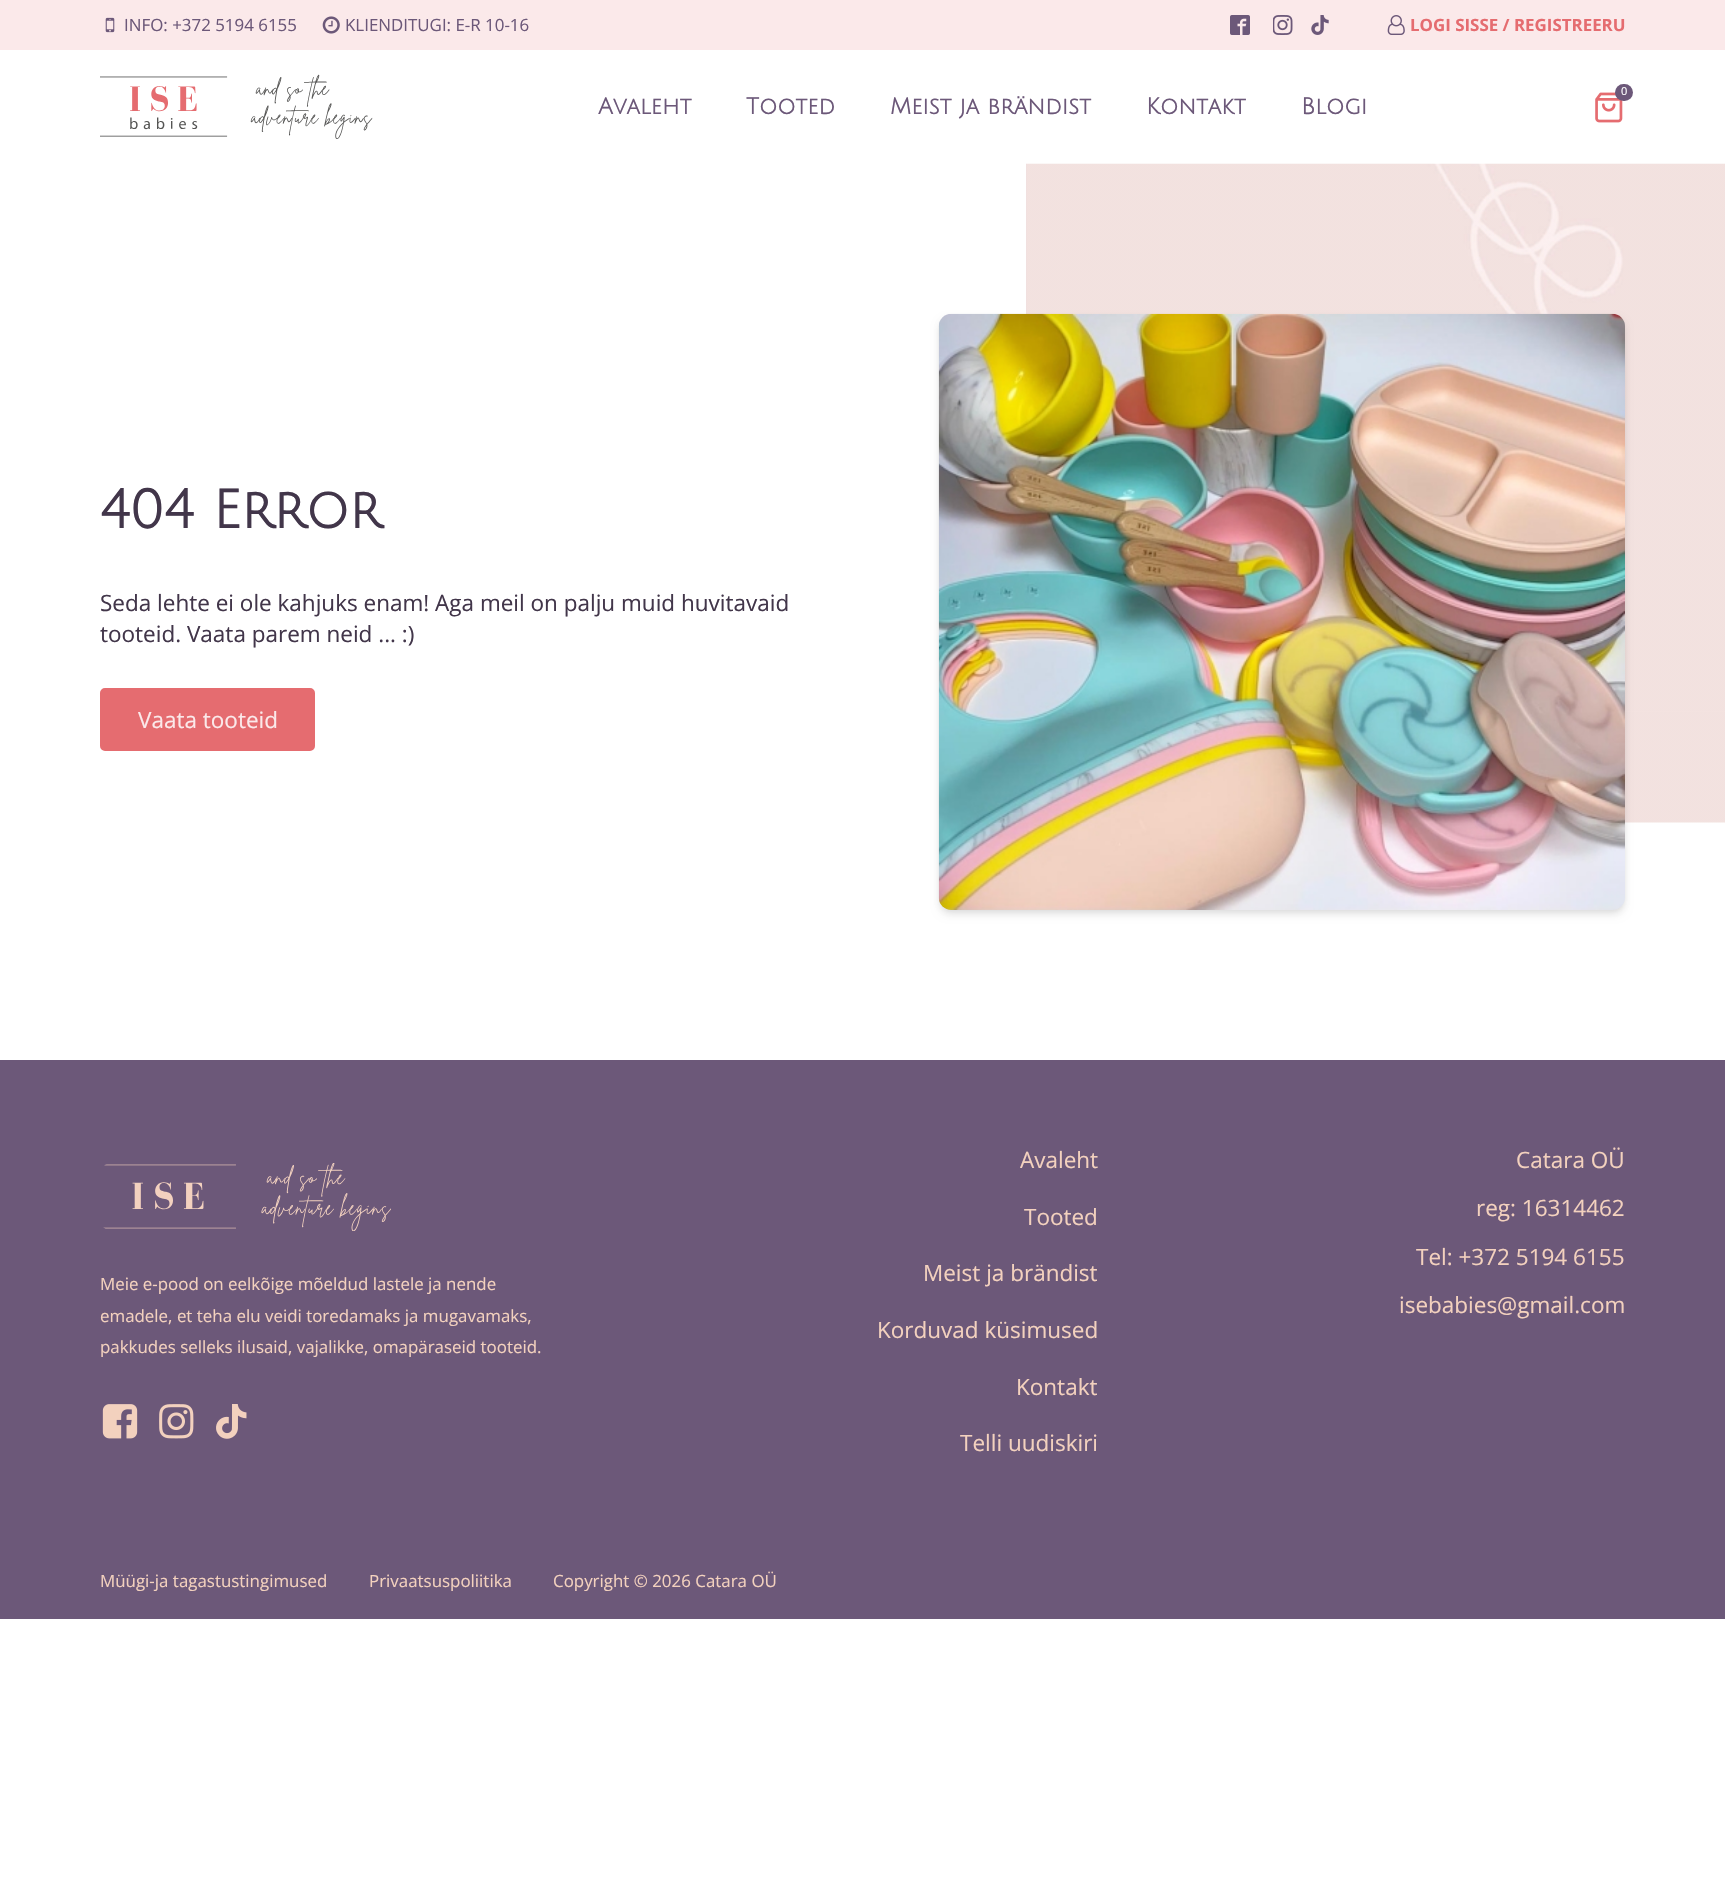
static SkFont makeFont(const char* family, int weight, float size, bool italic = false) {
  SkFontStyle style(weight, SkFontStyle::kNormal_Width,
    italic ? SkFontStyle::kItalic_Slant : SkFontStyle::kUpright_Slant);
  SkFont result(fontMgr->matchFamilyStyle(family, style), size);
  result.setSubpixel(true);
  return result;
}

static void text(SkCanvas* c, const char* s, float x, float y, const SkFont& font, SkColor color) {
  SkPaint ink(SkColor4f::FromColor(color));
  ink.setAntiAlias(true);
  c->drawString(s, x, y, font, ink);
}

static void box(SkCanvas* c, float l, float t, float r, float b, SkColor color) {
  SkPaint ink(SkColor4f::FromColor(color));
  ink.setAntiAlias(true);
  c->drawRect(SkRect::MakeLTRB(l, t, r, b), ink);
}

static void roundBox(SkCanvas* c, float l, float t, float r, float b, float radius, SkColor color) {
  SkPaint ink(SkColor4f::FromColor(color));
  ink.setAntiAlias(true);
  c->drawRoundRect(SkRect::MakeLTRB(l, t, r, b), radius, radius, ink);
}

static void picture(SkCanvas* c, const char* path, float l, float t, float r, float b) {
  auto image = SkImages::DeferredFromEncodedData(SkData::MakeFromFileName(path));
  c->drawImageRect(image, SkRect::MakeLTRB(l, t, r, b), SkSamplingOptions());
}

void draw(SkCanvas* c) {
  SkPaint paint;
  paint.setAntiAlias(true);
  c->clear(0xffffffff);
  box(c, 0, 0, 1725, 50, 0xfffbe9ea);
  picture(c, "img_01.png", 105, 17, 115, 33);
  SkFont face1 = makeFont("Open Sans", 400, 16.9f);
  text(c, "INFO: +372 5194 6155", 124, 31, face1, 0xff6c5879);
  picture(c, "img_02.png", 322, 16, 340, 34);
  text(c, "KLIENDITUGI: E-R 10-16", 345, 31, face1, 0xff6c5879);
  picture(c, "img_03.png", 1230, 15, 1250, 35);
  picture(c, "img_04.png", 1273, 15, 1293, 35);
  picture(c, "img_05.png", 1311, 15, 1329, 35);
  picture(c, "img_06.png", 1387, 15, 1405, 35);
  SkFont face2 = makeFont("Open Sans", 700, 16.9f);
  text(c, "LOGI SISSE / REGISTREERU", 1410, 31, face2, 0xffe56c70);
  picture(c, "img_07.png", 100, 74, 373, 139);
  picture(c, "img_08.png", 1595, 92, 1623, 123);
  roundBox(c, 1615, 84, 1633, 101, 8.5f, 0xff6c5879);
  SkFont face3 = makeFont("Open Sans", 400, 11);
  text(c, "0", 1621, 95, face3, 0xffffffff);
  SkFont face4 = makeFont("Julius Sans One", 700, 22.5f);
  text(c, "Avaleht", 598, 114, face4, 0xff6c5879);
  text(c, "Tooted", 746, 114, face4, 0xff6c5879);
  text(c, "Meist ja brändist", 890, 114, face4, 0xff6c5879);
  text(c, "Kontakt", 1146, 114, face4, 0xff6c5879);
  text(c, "Blogi", 1301, 114, face4, 0xff6c5879);
  SkFont face5 = makeFont("Julius Sans One", 700, 53.25f);
  text(c, "404 Error", 100, 528, face5, 0xff42364a);
  SkFont face6 = makeFont("Open Sans", 400, 22.5f);
  text(c, "Seda lehte ei ole kahjuks enam! Aga meil on palju muid huvitavaid", 100, 611, face6, 0xff42364a);
  text(c, "tooteid. Vaata parem neid ... :)", 100, 642, face6, 0xff42364a);
  paint.setColor(0xffe56c70);
  c->drawRoundRect(SkRect::MakeLTRB(102, 690, 313, 749), 3, 3, paint);
  paint.setStyle(SkPaint::kStroke_Style);
  paint.setStrokeWidth(4);
  c->drawRoundRect(SkRect::MakeLTRB(102, 690, 313, 749), 3, 3, paint);
  text(c, "Vaata tooteid", 138, 728, face6, 0xfffbe9ea);
  picture(c, "img_09.png", 1026, 163, 1725, 823);
  paint.setStyle(SkPaint::kFill_Style);
  paint.setColor(0x0f000000);
  paint.setMaskFilter(SkMaskFilter::MakeBlur(kNormal_SkBlurStyle, 2.5f));
  c->drawRoundRect(SkRect::MakeLTRB(940, 318, 1624, 911), 11, 11, paint);
  paint.setMaskFilter(nullptr);
  paint.setColor(0x1a000000);
  paint.setMaskFilter(SkMaskFilter::MakeBlur(kNormal_SkBlurStyle, 4));
  c->drawRoundRect(SkRect::MakeLTRB(940, 320, 1624, 914), 11, 11, paint);
  paint.setMaskFilter(nullptr);
  picture(c, "img_10.png", 938, 313, 1625, 910);
  box(c, 0, 1060, 1725, 1619, 0xff6c5879);
  picture(c, "img_11.png", 103, 1163, 391, 1231);
  text(c, "Meie e-pood on eelkõige mõeldud lastele ja nende", 100, 1290, face1, 0xfff3d1be);
  text(c, "emadele, et teha elu veidi toredamaks ja mugavamaks,", 100, 1322, face1, 0xfff3d1be);
  text(c, "pakkudes selleks ilusaid, vajalikke, omapäraseid tooteid.", 100, 1353, face1, 0xfff3d1be);
  picture(c, "img_12.png", 102, 1404, 138, 1439);
  picture(c, "img_13.png", 159, 1404, 194, 1439);
  picture(c, "img_14.png", 216, 1404, 247, 1439);
  text(c, "Avaleht", 1020, 1168, face6, 0xfff3d1be);
  text(c, "Tooted", 1024, 1225, face6, 0xfff3d1be);
  text(c, "Meist ja brändist", 923, 1281, face6, 0xfff3d1be);
  text(c, "Korduvad küsimused", 877, 1338, face6, 0xfff3d1be);
  text(c, "Kontakt", 1016, 1395, face6, 0xfff3d1be);
  text(c, "Telli uudiskiri", 960, 1451, face6, 0xfff3d1be);
  text(c, "Catara OÜ", 1516, 1168, face6, 0xfff3d1be);
  text(c, "reg: 16314462", 1476, 1216, face6, 0xfff3d1be);
  text(c, "Tel: +372 5194 6155", 1416, 1265, face6, 0xfff3d1be);
  text(c, "isebabies@gmail.com", 1399, 1313, face6, 0xfff3d1be);
  text(c, "Müügi-ja tagastustingimused", 100, 1587, face1, 0xfff3d1be);
  text(c, "Privaatsuspoliitika", 369, 1587, face1, 0xfff3d1be);
  text(c, "Copyright © 2026 Catara OÜ", 553, 1587, face1, 0xfff3d1be);
}
